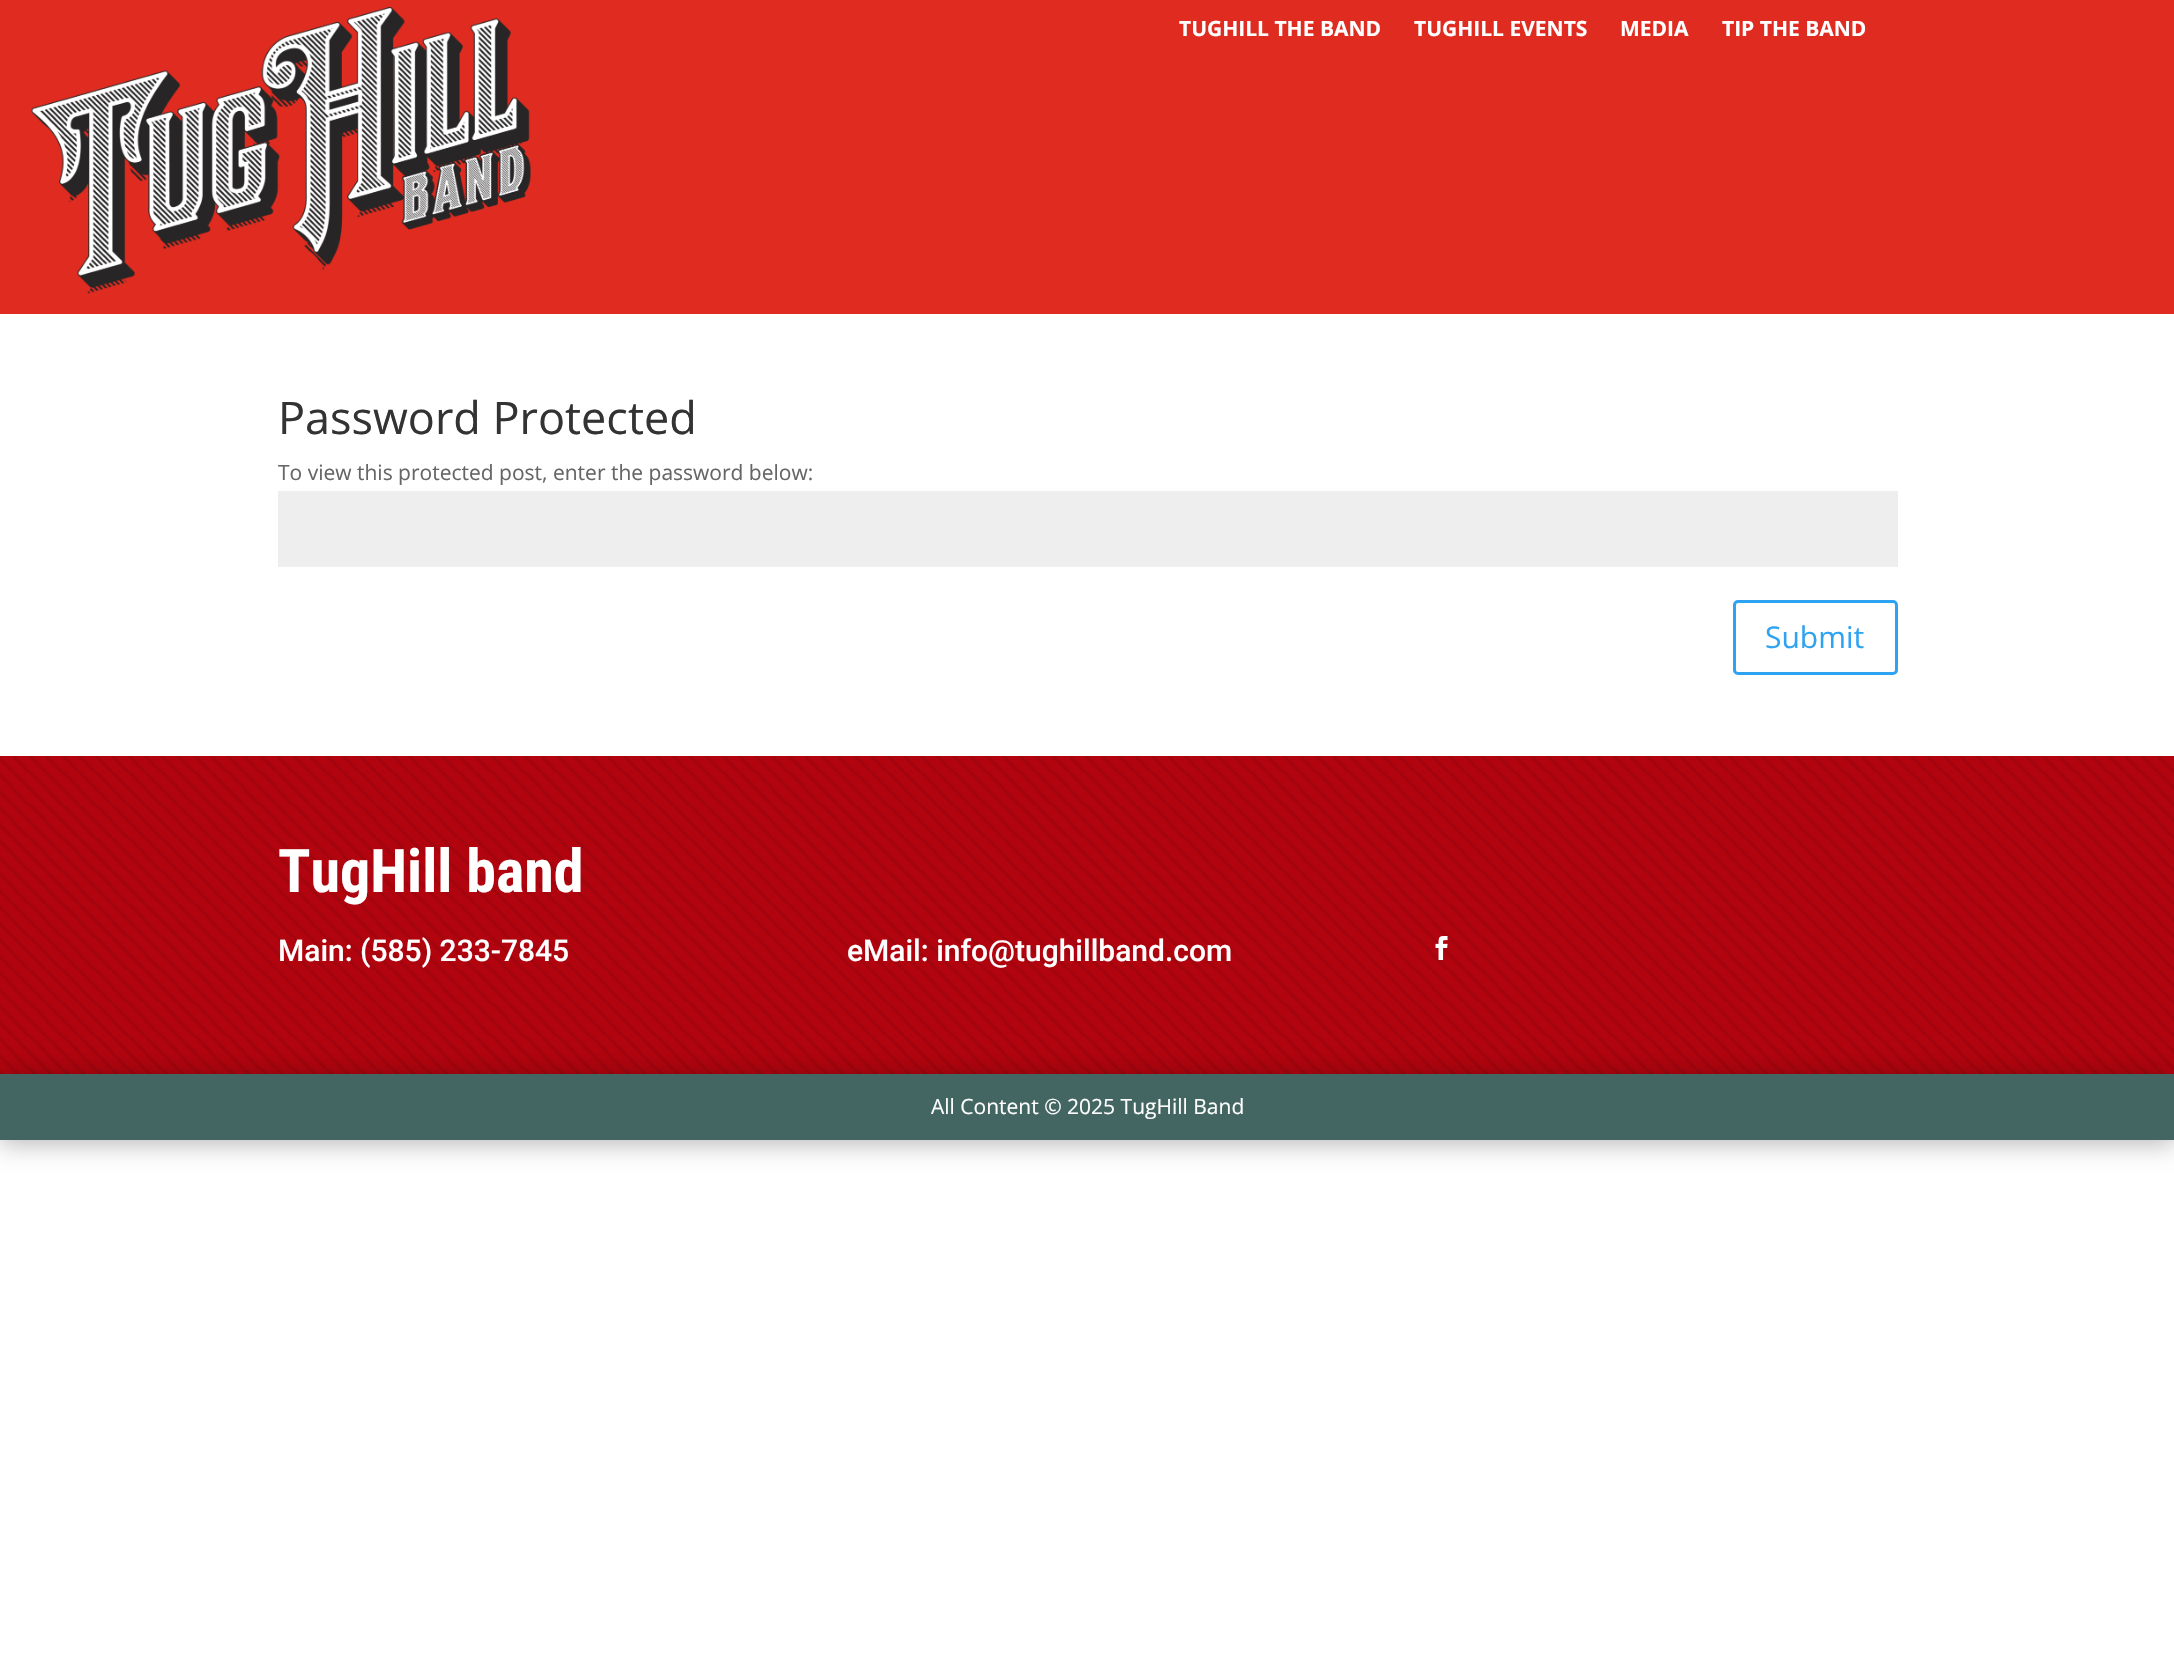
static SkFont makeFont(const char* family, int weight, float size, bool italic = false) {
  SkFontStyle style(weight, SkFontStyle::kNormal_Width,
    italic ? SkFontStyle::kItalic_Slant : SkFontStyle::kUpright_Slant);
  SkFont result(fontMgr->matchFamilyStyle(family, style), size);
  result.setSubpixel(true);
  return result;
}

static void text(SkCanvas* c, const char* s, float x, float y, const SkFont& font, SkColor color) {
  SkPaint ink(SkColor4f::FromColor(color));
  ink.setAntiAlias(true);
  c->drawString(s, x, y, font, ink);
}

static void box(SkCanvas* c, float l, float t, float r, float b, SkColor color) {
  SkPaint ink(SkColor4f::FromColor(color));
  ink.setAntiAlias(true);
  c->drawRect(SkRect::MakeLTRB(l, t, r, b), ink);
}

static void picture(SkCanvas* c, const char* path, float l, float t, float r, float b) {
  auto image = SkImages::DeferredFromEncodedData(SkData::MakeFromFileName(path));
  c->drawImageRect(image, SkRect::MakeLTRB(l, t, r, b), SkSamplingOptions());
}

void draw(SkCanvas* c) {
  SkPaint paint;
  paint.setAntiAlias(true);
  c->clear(0xffffffff);
  box(c, 0, 0, 2174, 314, 0xffe02b20);
  picture(c, "img_01.png", 31, 6, 531, 294);
  SkFont face1 = makeFont("Open Sans", 700, 21);
  text(c, "TUGHILL THE BAND", 1179, 36, face1, 0xffffffff);
  text(c, "TUGHILL EVENTS", 1414, 36, face1, 0xffffffff);
  text(c, "MEDIA", 1620, 36, face1, 0xffffffff);
  text(c, "TIP THE BAND", 1722, 36, face1, 0xffffffff);
  SkFont face2 = makeFont("Open Sans", 400, 45);
  text(c, "Password Protected", 278, 434, face2, 0xff333333);
  SkFont face3 = makeFont("Open Sans", 400, 21);
  text(c, "To view this protected post, enter the password below:", 278, 480, face3, 0xff666666);
  box(c, 278, 491, 1898, 567, 0xffeeeeee);
  paint.setStyle(SkPaint::kStroke_Style);
  paint.setStrokeWidth(3);
  paint.setColor(0xff2ea3f2);
  c->drawRoundRect(SkRect::MakeLTRB(1734.5f, 601.5f, 1896.5f, 673.5f), 3.5f, 3.5f, paint);
  SkFont face4 = makeFont("Open Sans", 400, 30);
  text(c, "Submit", 1765, 648, face4, 0xff2ea3f2);
  box(c, 0, 756, 2174, 1074, 0xffb1040e);
  picture(c, "img_02.png", 0, 756, 2174, 1074);
  SkFont face5 = makeFont("Roboto Condensed", 700, 60);
  text(c, "TugHill band", 278, 892, face5, 0xffffffff);
  SkFont face6 = makeFont("Roboto", 500, 30);
  text(c, "Main: (585) 233-7845", 278, 961, face6, 0xffffffff);
  text(c, "eMail: info@tughillband.com", 847, 961, face6, 0xffffffff);
  picture(c, "img_03.png", 1435, 936, 1448, 960);
  paint.setStyle(SkPaint::kFill_Style);
  paint.setColor(0x4d000000);
  paint.setMaskFilter(SkMaskFilter::MakeBlur(kNormal_SkBlurStyle, 13.5f));
  c->drawRect(SkRect::MakeLTRB(0, 1077, 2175, 1143), paint);
  paint.setMaskFilter(nullptr);
  box(c, 0, 1074, 2174, 1140, 0xff436662);
  text(c, "All Content © 2025 TugHill Band", 931, 1114, face3, 0xffffffff);
}
